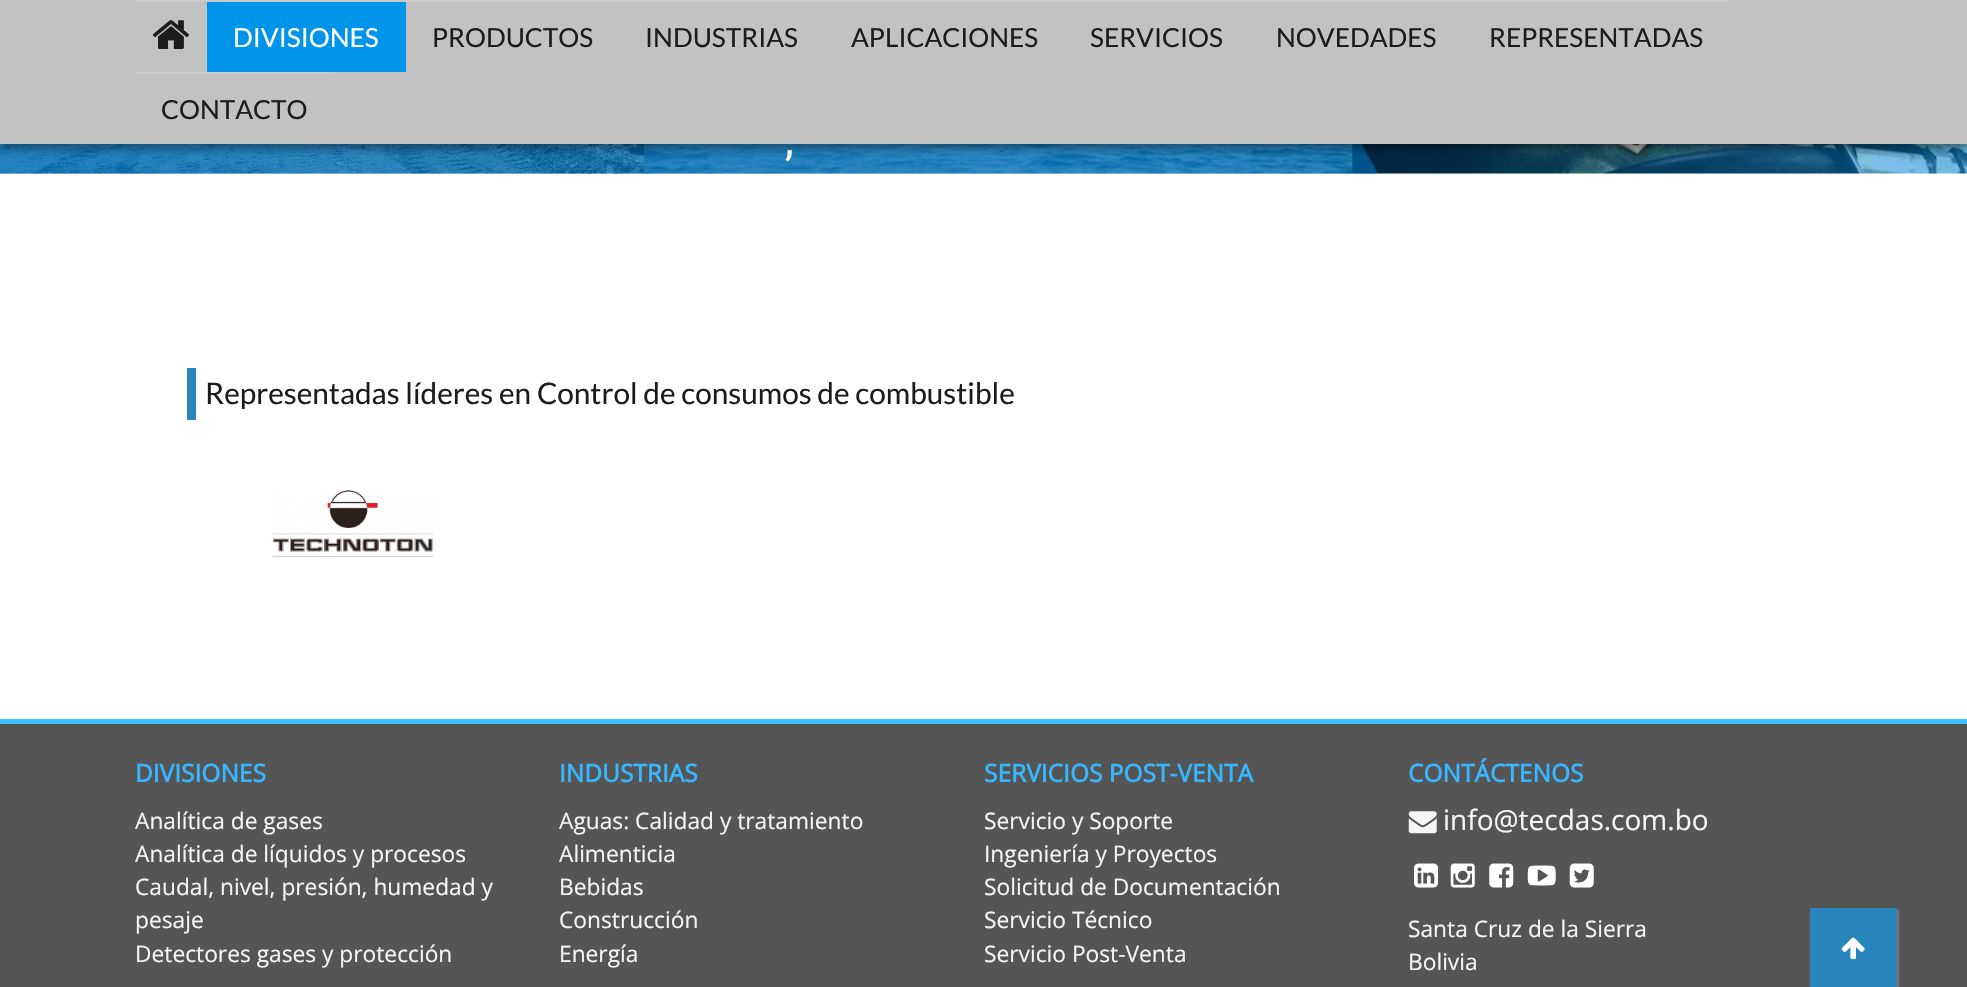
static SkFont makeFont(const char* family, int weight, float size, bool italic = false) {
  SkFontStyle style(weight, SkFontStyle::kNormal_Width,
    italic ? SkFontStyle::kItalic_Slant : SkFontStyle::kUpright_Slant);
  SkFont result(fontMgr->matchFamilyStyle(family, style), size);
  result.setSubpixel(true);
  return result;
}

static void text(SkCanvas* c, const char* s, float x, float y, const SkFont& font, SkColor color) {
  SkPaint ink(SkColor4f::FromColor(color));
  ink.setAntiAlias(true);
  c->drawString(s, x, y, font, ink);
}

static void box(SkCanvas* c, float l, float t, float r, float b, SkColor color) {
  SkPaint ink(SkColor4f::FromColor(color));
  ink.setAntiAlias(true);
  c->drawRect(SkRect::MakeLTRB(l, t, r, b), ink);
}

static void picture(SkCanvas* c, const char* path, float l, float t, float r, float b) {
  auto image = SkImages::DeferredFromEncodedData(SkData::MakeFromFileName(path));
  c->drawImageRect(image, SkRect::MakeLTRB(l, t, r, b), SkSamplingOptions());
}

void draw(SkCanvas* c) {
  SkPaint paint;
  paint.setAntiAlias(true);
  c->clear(0xffffffff);
  picture(c, "img_02.png", 0, 144, 1967, 174);
  picture(c, "img_03.png", 0, 144, 1378, 174);
  paint.setColor(0x66000000);
  paint.setMaskFilter(SkMaskFilter::MakeBlur(kNormal_SkBlurStyle, 4.5f));
  c->drawRect(SkRect::MakeLTRB(0, 5, 1967, 149), paint);
  paint.setMaskFilter(nullptr);
  box(c, 0, 0, 1967, 144, 0xffc2c2c2);
  box(c, 135, 0, 1729, 2, 0xffcacaca);
  picture(c, "img_01.png", 152, 20, 189, 49);
  box(c, 207, 2, 406, 72, 0xff0095ea);
  SkFont face1 = makeFont("Lato", 400, 26.25f);
  text(c, "DIVISIONES", 233, 47, face1, 0xffffffff);
  text(c, "PRODUCTOS", 432, 47, face1, 0xff1c1c1c);
  text(c, "INDUSTRIAS", 645, 47, face1, 0xff1c1c1c);
  text(c, "APLICACIONES", 851, 47, face1, 0xff1c1c1c);
  text(c, "SERVICIOS", 1090, 47, face1, 0xff1c1c1c);
  text(c, "NOVEDADES", 1276, 47, face1, 0xff1c1c1c);
  text(c, "REPRESENTADAS", 1489, 47, face1, 0xff1c1c1c);
  box(c, 135, 72, 334, 74, 0xffcacaca);
  text(c, "CONTACTO", 161, 119, face1, 0xff1c1c1c);
  SkFont face2 = makeFont("Roboto", 400, 44);
  text(c, ",", 785, 155, face2, 0xffffffff);
  box(c, 187, 368, 196, 420, 0xff2886bd);
  SkFont face3 = makeFont("Lato", 400, 29.75f);
  text(c, "Representadas líderes en Control de consumos de combustible", 205, 404, face3, 0xff1c1c1c);
  picture(c, "img_04.png", 272, 490, 434, 557);
  box(c, 0, 724, 1967, 987, 0xff555555);
  box(c, 0, 719, 1967, 724, 0xff3ec2ff);
  SkFont face4 = makeFont("Open Sans", 700, 24.5f);
  text(c, "DIVISIONES", 135, 782, face4, 0xff37b7ff);
  SkFont face5 = makeFont("Open Sans", 400, 22.75f);
  text(c, "Analítica de gases", 135, 829, face5, 0xfff5f5f5);
  text(c, "Analítica de líquidos y procesos", 135, 862, face5, 0xfff5f5f5);
  text(c, "Caudal, nivel, presión, humedad y", 135, 895, face5, 0xfff5f5f5);
  text(c, "pesaje", 135, 928, face5, 0xfff5f5f5);
  text(c, "Detectores gases y protección", 135, 962, face5, 0xfff5f5f5);
  text(c, "INDUSTRIAS", 559, 782, face4, 0xff37b7ff);
  text(c, "Aguas: Calidad y tratamiento", 559, 829, face5, 0xfff5f5f5);
  text(c, "Alimenticia", 559, 862, face5, 0xfff5f5f5);
  text(c, "Bebidas", 559, 895, face5, 0xfff5f5f5);
  text(c, "Construcción", 559, 928, face5, 0xfff5f5f5);
  text(c, "Energía", 559, 962, face5, 0xfff5f5f5);
  text(c, "SERVICIOS POST-VENTA", 984, 782, face4, 0xff37b7ff);
  text(c, "Servicio y Soporte", 984, 829, face5, 0xfff5f5f5);
  text(c, "Ingeniería y Proyectos", 984, 862, face5, 0xfff5f5f5);
  text(c, "Solicitud de Documentación", 984, 895, face5, 0xfff5f5f5);
  text(c, "Servicio Técnico", 984, 928, face5, 0xfff5f5f5);
  text(c, "Servicio Post-Venta", 984, 962, face5, 0xfff5f5f5);
  text(c, "CONTÁCTENOS", 1408, 782, face4, 0xff37b7ff);
  picture(c, "img_05.png", 1408, 811, 1437, 834);
  SkFont face6 = makeFont("Open Sans", 400, 28);
  text(c, "info@tecdas.com.bo", 1443, 830, face6, 0xfff5f5f5);
  picture(c, "img_06.png", 1414, 863, 1438, 888);
  picture(c, "img_07.png", 1450, 863, 1475, 888);
  picture(c, "img_08.png", 1489, 863, 1514, 888);
  picture(c, "img_09.png", 1527, 865, 1556, 886);
  picture(c, "img_10.png", 1569, 863, 1594, 888);
  text(c, "Santa Cruz de la Sierra", 1408, 937, face5, 0xfff5f5f5);
  text(c, "Bolivia", 1408, 970, face5, 0xfff5f5f5);
  paint.setColor(0x80999999);
  paint.setMaskFilter(SkMaskFilter::MakeBlur(kNormal_SkBlurStyle, 1));
  c->drawRect(SkRect::MakeLTRB(1811, 910, 1899, 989), paint);
  paint.setMaskFilter(nullptr);
  box(c, 1810, 908, 1897, 987, 0xff2886bd);
  picture(c, "img_11.png", 1841, 937, 1865, 960);
}
